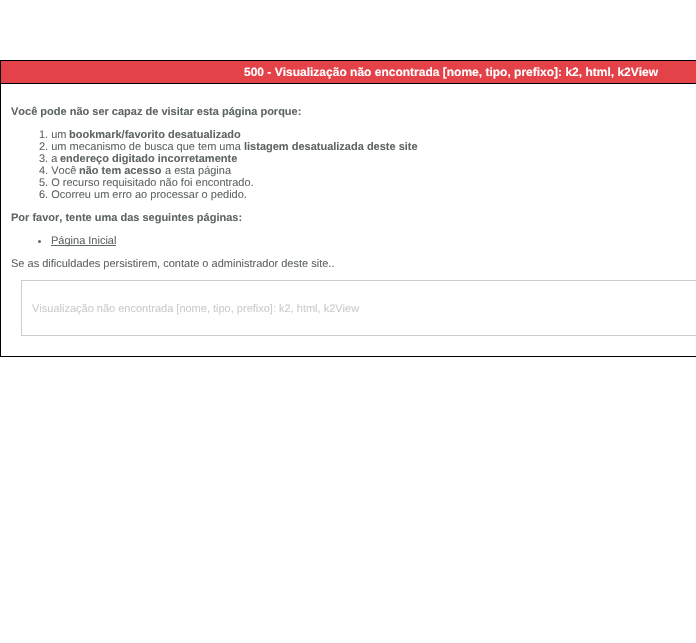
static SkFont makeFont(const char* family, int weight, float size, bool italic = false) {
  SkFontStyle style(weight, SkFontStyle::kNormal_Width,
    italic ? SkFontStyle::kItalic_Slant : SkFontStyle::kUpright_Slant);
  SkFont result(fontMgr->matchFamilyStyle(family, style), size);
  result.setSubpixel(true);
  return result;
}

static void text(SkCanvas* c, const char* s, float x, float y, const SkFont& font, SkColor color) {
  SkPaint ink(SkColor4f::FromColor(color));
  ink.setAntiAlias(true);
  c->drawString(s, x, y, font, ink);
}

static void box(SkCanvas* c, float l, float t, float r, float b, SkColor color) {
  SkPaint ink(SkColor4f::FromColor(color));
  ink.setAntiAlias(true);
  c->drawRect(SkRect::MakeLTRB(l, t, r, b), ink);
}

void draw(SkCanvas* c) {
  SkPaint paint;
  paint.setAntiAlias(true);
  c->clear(0xffffffff);
  paint.setStyle(SkPaint::kStroke_Style);
  paint.setStrokeWidth(1);
  paint.setColor(0xff000000);
  c->drawRect(SkRect::MakeLTRB(0.5f, 60.5f, 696.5f, 356.5f), paint);
  box(c, 1, 61, 696, 83, 0xffe44249);
  box(c, 1, 83, 696, 84, 0xff000000);
  SkFont face1 = makeFont("Liberation Sans", 700, 12);
  text(c, "500 - Visualização não encontrada [nome, tipo, prefixo]: k2, html, k2View", 244, 76, face1, 0xffffffff);
  SkFont face2 = makeFont("Liberation Sans", 700, 11);
  text(c, "Você pode não ser capaz de visitar esta página porque:", 11, 115, face2, 0xff5f6565);
  SkFont face3 = makeFont("Liberation Sans", 400, 11);
  text(c, "1. um", 39, 138, face3, 0xff5f6565);
  text(c, "bookmark/favorito desatualizado", 69, 138, face2, 0xff5f6565);
  text(c, "2. um mecanismo de busca que tem uma", 39, 150, face3, 0xff5f6565);
  text(c, "listagem desatualizada deste site", 244, 150, face2, 0xff5f6565);
  text(c, "3. a", 39, 162, face3, 0xff5f6565);
  text(c, "endereço digitado incorretamente", 60, 162, face2, 0xff5f6565);
  text(c, "4. Você", 39, 174, face3, 0xff5f6565);
  text(c, "não tem acesso", 79, 174, face2, 0xff5f6565);
  text(c, "a esta página", 165, 174, face3, 0xff5f6565);
  text(c, "5. O recurso requisitado não foi encontrado.", 39, 186, face3, 0xff5f6565);
  text(c, "6. Ocorreu um erro ao processar o pedido.", 39, 198, face3, 0xff5f6565);
  text(c, "Por favor, tente uma das seguintes páginas:", 11, 221, face2, 0xff5f6565);
  paint.setStyle(SkPaint::kFill_Style);
  paint.setColor(0xff5f6565);
  c->drawCircle(39.5f, 241.5f, 1.5f, paint);
  box(c, 51, 245, 116, 246, 0xff5f6565);
  text(c, "Página Inicial", 51, 244, face3, 0xff5f6565);
  text(c, "Se as dificuldades persistirem, contate o administrador deste site..", 11, 267, face3, 0xff5f6565);
  paint.setStyle(SkPaint::kStroke_Style);
  paint.setColor(0xffcccccc);
  c->drawRect(SkRect::MakeLTRB(21.5f, 280.5f, 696.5f, 335.5f), paint);
  text(c, "Visualização não encontrada [nome, tipo, prefixo]: k2, html, k2View", 32, 312, face3, 0xffcccccc);
}
